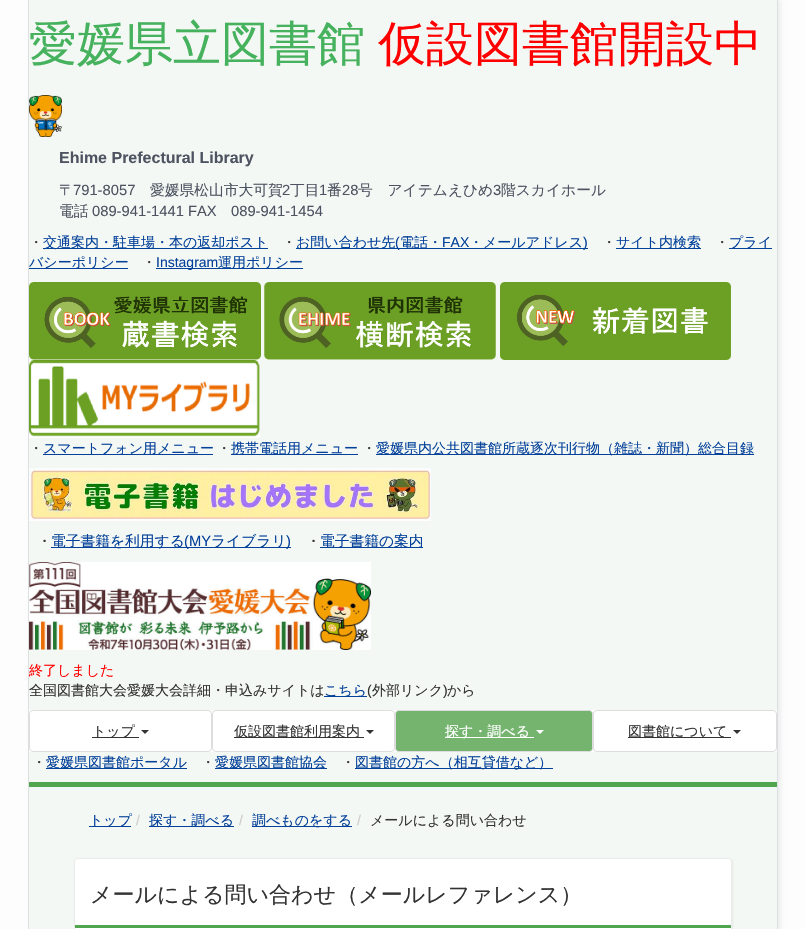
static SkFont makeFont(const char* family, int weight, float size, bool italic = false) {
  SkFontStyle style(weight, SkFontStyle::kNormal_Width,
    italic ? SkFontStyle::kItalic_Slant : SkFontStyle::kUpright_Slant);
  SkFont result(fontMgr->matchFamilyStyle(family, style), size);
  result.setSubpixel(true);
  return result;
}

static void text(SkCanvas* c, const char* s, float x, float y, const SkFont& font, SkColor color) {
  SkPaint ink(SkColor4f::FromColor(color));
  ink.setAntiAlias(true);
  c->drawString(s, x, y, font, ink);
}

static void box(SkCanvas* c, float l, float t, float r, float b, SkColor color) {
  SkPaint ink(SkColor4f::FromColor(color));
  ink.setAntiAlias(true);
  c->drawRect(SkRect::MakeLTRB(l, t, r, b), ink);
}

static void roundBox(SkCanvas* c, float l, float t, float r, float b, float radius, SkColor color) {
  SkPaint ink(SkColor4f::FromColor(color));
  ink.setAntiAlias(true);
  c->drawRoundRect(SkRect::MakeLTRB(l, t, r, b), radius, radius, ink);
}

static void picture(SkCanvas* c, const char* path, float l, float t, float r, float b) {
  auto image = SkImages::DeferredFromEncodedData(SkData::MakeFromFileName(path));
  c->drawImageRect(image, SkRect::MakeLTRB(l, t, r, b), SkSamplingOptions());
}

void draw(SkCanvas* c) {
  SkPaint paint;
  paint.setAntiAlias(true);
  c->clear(0xfffdfdfd);
  paint.setColor(0xffeeeef0);
  paint.setMaskFilter(SkMaskFilter::MakeBlur(kNormal_SkBlurStyle, 2));
  c->drawRect(SkRect::MakeLTRB(31, 0, 781, 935), paint);
  paint.setMaskFilter(nullptr);
  box(c, 29, 0, 777, 929, 0xfff4f8f4);
  box(c, 777, 0, 778, 929, 0xffdce0e1);
  box(c, 28, 0, 29, 929, 0xffdce0e1);
  box(c, 29, 782, 777, 787, 0xff51a54f);
  SkFont face1 = makeFont("WenQuanYi Zen Hei", 500, 48);
  text(c, "愛媛県立図書館", 29, 60, face1, 0xff47b25e);
  text(c, "仮設図書館開設中", 378, 60, face1, 0xffff0000);
  picture(c, "img_01.png", 29, 95, 62, 137);
  SkFont face2 = makeFont("Liberation Sans", 700, 16);
  text(c, "Ehime Prefectural Library", 59, 163, face2, 0xff4d5361);
  SkFont face3 = makeFont("WenQuanYi Zen Hei", 500, 14.75f);
  text(c, "〒", 59, 195, face3, 0xff4d5361);
  SkFont face4 = makeFont("Liberation Sans", 400, 14.75f);
  text(c, "791-8057", 73, 195, face4, 0xff4d5361);
  text(c, "愛媛県松山市大可賀", 150, 195, face3, 0xff4d5361);
  text(c, "2", 282, 195, face4, 0xff4d5361);
  text(c, "丁目", 290, 195, face3, 0xff4d5361);
  text(c, "1", 319, 195, face4, 0xff4d5361);
  text(c, "番", 327, 195, face3, 0xff4d5361);
  text(c, "28", 342, 195, face4, 0xff4d5361);
  text(c, "号　アイテムえひめ", 358, 195, face3, 0xff4d5361);
  text(c, "3", 493, 195, face4, 0xff4d5361);
  text(c, "階スカイホール", 501, 195, face3, 0xff4d5361);
  text(c, "電話", 59, 216, face3, 0xff4d5361);
  text(c, "089-941-1441 FAX", 92, 216, face4, 0xff4d5361);
  text(c, "089-941-1454", 231, 216, face4, 0xff4d5361);
  SkFont face5 = makeFont("WenQuanYi Zen Hei", 500, 14);
  text(c, "・", 29, 247, face5, 0xff333333);
  box(c, 43, 248, 268, 249, 0xff04419a);
  text(c, "交通案内・駐車場・本の返却ポスト", 43, 247, face5, 0xff04419a);
  text(c, "・", 282, 247, face5, 0xff333333);
  box(c, 296, 248, 588, 249, 0xff04419a);
  text(c, "お問い合わせ先", 296, 247, face5, 0xff04419a);
  SkFont face6 = makeFont("Liberation Sans", 400, 14);
  text(c, "(", 395, 247, face6, 0xff04419a);
  text(c, "電話・", 400, 247, face5, 0xff04419a);
  text(c, "FAX", 442, 247, face6, 0xff04419a);
  text(c, "・メールアドレス", 469, 247, face5, 0xff04419a);
  text(c, ")", 583, 247, face6, 0xff04419a);
  text(c, "・", 602, 247, face5, 0xff333333);
  box(c, 616, 248, 701, 249, 0xff04419a);
  text(c, "サイト内検索", 616, 247, face5, 0xff04419a);
  text(c, "・", 715, 247, face5, 0xff333333);
  box(c, 729, 248, 772, 249, 0xff04419a);
  text(c, "プライ", 729, 247, face5, 0xff04419a);
  box(c, 29, 268, 128, 269, 0xff04419a);
  text(c, "バシーポリシー", 29, 267, face5, 0xff04419a);
  text(c, "・", 142, 267, face5, 0xff333333);
  box(c, 156, 268, 303, 269, 0xff04419a);
  text(c, "Instagram", 156, 267, face6, 0xff04419a);
  text(c, "運用ポリシー", 218, 267, face5, 0xff04419a);
  picture(c, "img_02.png", 29, 282, 261, 360);
  picture(c, "img_03.png", 264, 282, 496, 360);
  picture(c, "img_04.png", 500, 282, 731, 360);
  picture(c, "img_05.png", 29, 360, 260, 438);
  text(c, "・", 29, 453, face5, 0xff333333);
  box(c, 43, 454, 213, 455, 0xff04419a);
  text(c, "スマートフォン用メニュー", 43, 453, face5, 0xff04419a);
  text(c, "・", 217, 453, face5, 0xff333333);
  box(c, 231, 454, 358, 455, 0xff04419a);
  text(c, "携帯電話用メニュー", 231, 453, face5, 0xff04419a);
  text(c, "・", 362, 453, face5, 0xff333333);
  box(c, 376, 454, 754, 455, 0xff04419a);
  text(c, "愛媛県内公共図書館所蔵逐次刊行物（雑誌・新聞）総合目録", 376, 453, face5, 0xff04419a);
  picture(c, "img_06.png", 29, 468, 431, 521);
  text(c, "・", 37, 546, face3, 0xff333333);
  box(c, 51, 547, 291, 548, 0xff04419a);
  text(c, "電子書籍を利用する", 51, 546, face3, 0xff04419a);
  text(c, "(MY", 184, 546, face4, 0xff04419a);
  text(c, "ライブラリ", 211, 546, face3, 0xff04419a);
  text(c, ")", 286, 546, face4, 0xff04419a);
  text(c, "・", 306, 546, face3, 0xff333333);
  box(c, 320, 547, 423, 548, 0xff04419a);
  text(c, "電子書籍の案内", 320, 546, face3, 0xff04419a);
  picture(c, "img_07.png", 29, 562, 371, 650);
  text(c, "終了しました", 29, 675, face5, 0xffff0000);
  text(c, "全国図書館大会愛媛大会詳細・申込みサイトは", 29, 695, face5, 0xff333333);
  box(c, 324, 696, 367, 697, 0xff04419a);
  text(c, "こちら", 324, 695, face5, 0xff04419a);
  text(c, "(", 367, 695, face6, 0xff333333);
  text(c, "外部リンク", 372, 695, face5, 0xff333333);
  text(c, ")", 443, 695, face6, 0xff333333);
  text(c, "から", 447, 695, face5, 0xff333333);
  box(c, 29, 710, 777, 752, 0xffffffff);
  paint.setStyle(SkPaint::kStroke_Style);
  paint.setStrokeWidth(1);
  paint.setColor(0xffdddddd);
  c->drawRoundRect(SkRect::MakeLTRB(29.5f, 710.5f, 211.5f, 751.5f), 3.5f, 3.5f, paint);
  box(c, 92, 737, 139, 738, 0xff333333);
  text(c, "トップ", 92, 736, face5, 0xff333333);
  paint.setStyle(SkPaint::kFill_Style);
  paint.setColor(0xff333333);
  c->drawPath(SkPathBuilder().moveTo(141, 730).lineTo(149, 730).lineTo(145, 734).close().detach(), paint);
  paint.setStyle(SkPaint::kStroke_Style);
  paint.setColor(0xffdddddd);
  c->drawRoundRect(SkRect::MakeLTRB(212.5f, 710.5f, 394.5f, 751.5f), 3.5f, 3.5f, paint);
  box(c, 234, 737, 364, 738, 0xff333333);
  text(c, "仮設図書館利用案内", 234, 736, face5, 0xff333333);
  paint.setStyle(SkPaint::kFill_Style);
  paint.setColor(0xff333333);
  c->drawPath(SkPathBuilder().moveTo(366, 730).lineTo(374, 730).lineTo(370, 734).close().detach(), paint);
  paint.setColor(0xff75b46e);
  c->drawRoundRect(SkRect::MakeLTRB(395.5f, 710.5f, 592.5f, 751.5f), 3.5f, 3.5f, paint);
  paint.setStyle(SkPaint::kStroke_Style);
  paint.setColor(0xffdddddd);
  c->drawRoundRect(SkRect::MakeLTRB(395.5f, 710.5f, 592.5f, 751.5f), 3.5f, 3.5f, paint);
  roundBox(c, 396, 711, 592, 751, 4, 0xff75b46e);
  box(c, 445, 737, 534, 738, 0xffffffff);
  text(c, "探す・調べる", 445, 736, face5, 0xffffffff);
  paint.setStyle(SkPaint::kFill_Style);
  paint.setColor(0xffffffff);
  c->drawPath(SkPathBuilder().moveTo(536, 730).lineTo(544, 730).lineTo(540, 734).close().detach(), paint);
  paint.setStyle(SkPaint::kStroke_Style);
  paint.setColor(0xffdddddd);
  c->drawRoundRect(SkRect::MakeLTRB(593.5f, 710.5f, 776.5f, 751.5f), 3.5f, 3.5f, paint);
  box(c, 628, 737, 731, 738, 0xff333333);
  text(c, "図書館について", 628, 736, face5, 0xff333333);
  paint.setStyle(SkPaint::kFill_Style);
  paint.setColor(0xff333333);
  c->drawPath(SkPathBuilder().moveTo(733, 730).lineTo(741, 730).lineTo(737, 734).close().detach(), paint);
  text(c, "・", 32, 767, face5, 0xff333333);
  box(c, 46, 768, 187, 769, 0xff04419a);
  text(c, "愛媛県図書館ポータル", 46, 767, face5, 0xff04419a);
  text(c, "・", 201, 767, face5, 0xff333333);
  box(c, 215, 768, 327, 769, 0xff04419a);
  text(c, "愛媛県図書館協会", 215, 767, face5, 0xff04419a);
  text(c, "・", 341, 767, face5, 0xff333333);
  box(c, 355, 768, 553, 769, 0xff04419a);
  text(c, "図書館の方へ（相互貸借など）", 355, 767, face5, 0xff04419a);
  box(c, 89, 826, 131, 827, 0xff04419a);
  text(c, "トップ", 89, 825, face5, 0xff04419a);
  text(c, "/", 136, 825, face6, 0xffcccccc);
  box(c, 149, 826, 234, 827, 0xff04419a);
  text(c, "探す・調べる", 149, 825, face5, 0xff04419a);
  text(c, "/", 239, 825, face6, 0xffcccccc);
  box(c, 252, 826, 352, 827, 0xff04419a);
  text(c, "調べものをする", 252, 825, face5, 0xff04419a);
  text(c, "/", 357, 825, face6, 0xffcccccc);
  text(c, "メールによる問い合わせ", 370, 825, face5, 0xff333333);
  paint.setColor(0x0d000000);
  paint.setMaskFilter(SkMaskFilter::MakeBlur(kNormal_SkBlurStyle, 1));
  c->drawRoundRect(SkRect::MakeLTRB(75, 859, 733, 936), 4, 4, paint);
  paint.setMaskFilter(nullptr);
  paint.setColor(0xffffffff);
  c->drawRoundRect(SkRect::MakeLTRB(74.5f, 858.5f, 731.5f, 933.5f), 3.5f, 3.5f, paint);
  paint.setStyle(SkPaint::kStroke_Style);
  paint.setColor(0xffeaeaea);
  c->drawRoundRect(SkRect::MakeLTRB(74.5f, 858.5f, 731.5f, 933.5f), 3.5f, 3.5f, paint);
  paint.setStyle(SkPaint::kFill_Style);
  paint.setColor(0xffffffff);
  c->drawPath(SkPathBuilder().moveTo(78, 859).lineTo(728, 859).cubicTo(729.5f, 859, 731, 860.5f, 731, 862).lineTo(731, 928).lineTo(75, 928).lineTo(75, 862).cubicTo(75, 860.5f, 76.5f, 859, 78, 859).close().detach(), paint);
  box(c, 75, 925, 731, 928, 0xff51a54f);
  SkFont face7 = makeFont("WenQuanYi Zen Hei", 500, 22);
  text(c, "メールによる問い合わせ（メールレファレンス）", 90, 902, face7, 0xff333333);
}
